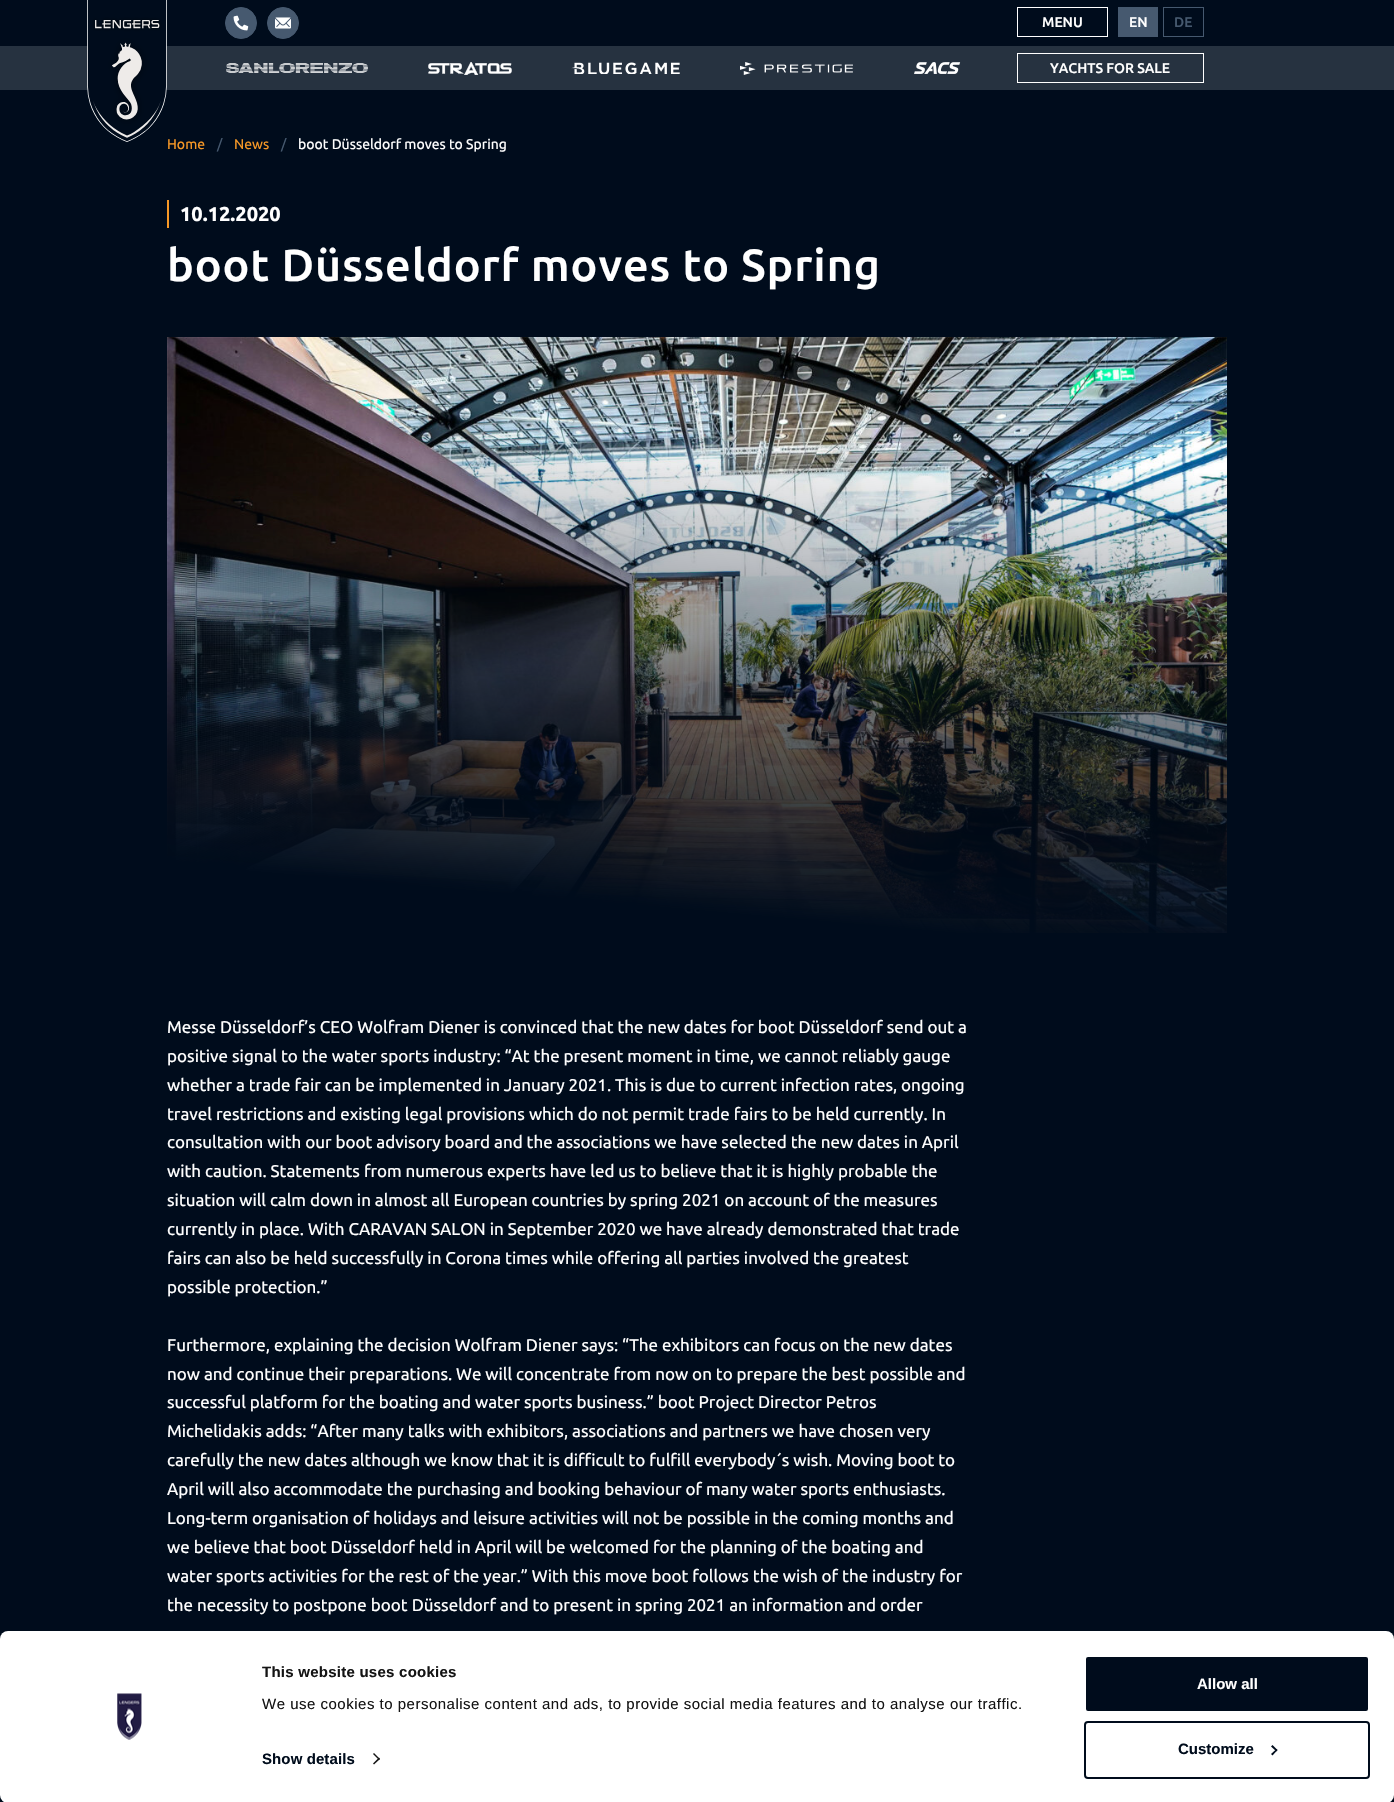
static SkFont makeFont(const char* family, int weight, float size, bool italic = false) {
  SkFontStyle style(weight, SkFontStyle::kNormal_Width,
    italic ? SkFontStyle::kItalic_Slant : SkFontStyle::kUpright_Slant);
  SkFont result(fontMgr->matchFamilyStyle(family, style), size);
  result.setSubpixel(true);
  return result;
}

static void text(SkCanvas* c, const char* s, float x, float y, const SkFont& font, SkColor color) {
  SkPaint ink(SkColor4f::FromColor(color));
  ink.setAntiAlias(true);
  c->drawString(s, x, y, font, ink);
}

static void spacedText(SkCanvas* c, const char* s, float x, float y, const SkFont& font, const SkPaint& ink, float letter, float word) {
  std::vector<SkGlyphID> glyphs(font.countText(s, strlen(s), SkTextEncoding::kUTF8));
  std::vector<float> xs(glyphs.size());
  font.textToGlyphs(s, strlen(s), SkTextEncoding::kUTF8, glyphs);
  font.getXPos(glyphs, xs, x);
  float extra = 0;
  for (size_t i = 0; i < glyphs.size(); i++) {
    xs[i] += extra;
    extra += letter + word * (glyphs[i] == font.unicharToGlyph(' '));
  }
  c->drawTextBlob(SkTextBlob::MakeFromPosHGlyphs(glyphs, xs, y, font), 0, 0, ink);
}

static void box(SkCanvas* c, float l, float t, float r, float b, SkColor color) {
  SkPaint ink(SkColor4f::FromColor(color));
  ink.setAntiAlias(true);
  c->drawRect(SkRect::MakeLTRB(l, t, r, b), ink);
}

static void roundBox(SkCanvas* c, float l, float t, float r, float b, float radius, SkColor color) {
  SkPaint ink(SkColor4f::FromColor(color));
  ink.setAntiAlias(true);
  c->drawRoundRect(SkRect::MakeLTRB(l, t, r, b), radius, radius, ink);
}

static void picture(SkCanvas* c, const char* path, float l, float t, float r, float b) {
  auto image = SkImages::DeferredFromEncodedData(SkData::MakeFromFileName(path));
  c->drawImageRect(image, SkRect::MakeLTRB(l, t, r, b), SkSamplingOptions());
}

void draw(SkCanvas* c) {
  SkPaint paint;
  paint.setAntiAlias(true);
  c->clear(0xff000c1c);
  box(c, 0, 46, 1394, 90, 0xff263240);
  picture(c, "img_01.png", 87, 0, 167, 142);
  paint.setColor(0xff46596f);
  c->drawCircle(241, 23, 15.5f, paint);
  paint.setStyle(SkPaint::kStroke_Style);
  paint.setStrokeWidth(1);
  c->drawCircle(241, 23, 15.5f, paint);
  picture(c, "img_02.png", 233, 15, 249, 31);
  paint.setStyle(SkPaint::kFill_Style);
  c->drawCircle(283, 23, 15.5f, paint);
  paint.setStyle(SkPaint::kStroke_Style);
  c->drawCircle(283, 23, 15.5f, paint);
  picture(c, "img_03.png", 275, 17, 291, 29);
  paint.setColor(0xffffffff);
  c->drawRect(SkRect::MakeLTRB(1017.5f, 7.5f, 1107.5f, 36.5f), paint);
  SkFont face1 = makeFont("Ubuntu", 500, 14);
  text(c, "MENU", 1042, 27, face1, 0xffffffff);
  box(c, 1118, 7, 1158, 37, 0xff46596f);
  text(c, "EN", 1129, 27, face1, 0xffffffff);
  paint.setColor(0xff46596f);
  c->drawRect(SkRect::MakeLTRB(1163.5f, 7.5f, 1203.5f, 36.5f), paint);
  text(c, "DE", 1174, 27, face1, 0xff46596f);
  picture(c, "img_04.png", 226, 63, 368, 73);
  picture(c, "img_05.png", 428, 62, 512, 75);
  picture(c, "img_06.png", 571, 62, 680, 74);
  picture(c, "img_07.png", 740, 62, 853, 75);
  picture(c, "img_08.png", 914, 62, 961, 74);
  paint.setColor(0xffffffff);
  c->drawRect(SkRect::MakeLTRB(1017.5f, 53.5f, 1203.5f, 82.5f), paint);
  text(c, "YACHTS FOR SALE", 1050, 73, face1, 0xffffffff);
  SkFont face2 = makeFont("Ubuntu", 400, 14);
  text(c, "Home", 167, 149, face2, 0xfff79826);
  text(c, "/", 217, 149, face2, 0xff46596f);
  text(c, "News", 234, 149, face2, 0xfff79826);
  text(c, "/", 281, 149, face2, 0xff46596f);
  text(c, "boot Düsseldorf moves to Spring", 298, 149, face2, 0xffffffff);
  box(c, 167, 200, 169, 228, 0xfff79826);
  SkFont face3 = makeFont("Ubuntu", 700, 20);
  text(c, "10.12.2020", 180, 221, face3, 0xffffffff);
  SkFont face4 = makeFont("Ubuntu", 500, 45);
  paint.setStyle(SkPaint::kFill_Style);
  spacedText(c, "boot Düsseldorf moves to Spring", 167, 281, face4, paint, 0.9f, 0);
  picture(c, "img_09.png", 167, 337, 1227, 933);
  SkFont face5 = makeFont("Ubuntu", 400, 17);
  text(c, "Messe Düsseldorf’s CEO Wolfram Diener is convinced that the new dates for boot Düsseldorf send out a", 167, 1033, face5, 0xffffffff);
  text(c, "positive signal to the water sports industry: “At the present moment in time, we cannot reliably gauge", 167, 1062, face5, 0xffffffff);
  text(c, "whether a trade fair can be implemented in January 2021. This is due to current infection rates, ongoing", 167, 1091, face5, 0xffffffff);
  text(c, "travel restrictions and existing legal provisions which do not permit trade fairs to be held currently. In", 167, 1120, face5, 0xffffffff);
  text(c, "consultation with our boot advisory board and the associations we have selected the new dates in April", 167, 1148, face5, 0xffffffff);
  text(c, "with caution. Statements from numerous experts have led us to believe that it is highly probable the", 167, 1177, face5, 0xffffffff);
  text(c, "situation will calm down in almost all European countries by spring 2021 on account of the measures", 167, 1206, face5, 0xffffffff);
  text(c, "currently in place. With CARAVAN SALON in September 2020 we have already demonstrated that trade", 167, 1235, face5, 0xffffffff);
  text(c, "fairs can also be held successfully in Corona times while offering all parties involved the greatest", 167, 1264, face5, 0xffffffff);
  text(c, "possible protection.”", 167, 1293, face5, 0xffffffff);
  text(c, "Furthermore, explaining the decision Wolfram Diener says: “The exhibitors can focus on the new dates", 167, 1351, face5, 0xffffffff);
  text(c, "now and continue their preparations. We will concentrate from now on to prepare the best possible and", 167, 1380, face5, 0xffffffff);
  text(c, "successful platform for the boating and water sports business.” boot Project Director Petros", 167, 1408, face5, 0xffffffff);
  text(c, "Michelidakis adds: “After many talks with exhibitors, associations and partners we have chosen very", 167, 1437, face5, 0xffffffff);
  text(c, "carefully the new dates although we know that it is difficult to fulfill everybody´s wish. Moving boot to", 167, 1466, face5, 0xffffffff);
  text(c, "April will also accommodate the purchasing and booking behaviour of many water sports enthusiasts.", 167, 1495, face5, 0xffffffff);
  text(c, "Long-term organisation of holidays and leisure activities will not be possible in the coming months and", 167, 1524, face5, 0xffffffff);
  text(c, "we believe that boot Düsseldorf held in April will be welcomed for the planning of the boating and", 167, 1553, face5, 0xffffffff);
  text(c, "water sports activities for the rest of the year.” With this move boot follows the wish of the industry for", 167, 1582, face5, 0xffffffff);
  text(c, "the necessity to postpone boot Düsseldorf and to present in spring 2021 an information and order", 167, 1611, face5, 0xffffffff);
  roundBox(c, 0, 1631, 1394, 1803, 8, 0xffffffff);
  picture(c, "img_10.png", 117, 1693, 142, 1740);
  SkFont face6 = makeFont("Liberation Sans", 700, 15);
  paint.setColor(0xff141414);
  spacedText(c, "This website uses cookies", 262, 1677, face6, paint, 0.25f, 0);
  SkFont face7 = makeFont("Liberation Sans", 400, 15);
  spacedText(c, "We use cookies to personalise content and ads, to provide social media features and to analyse our traffic.", 262, 1709, face7, paint, 0.5f, 0);
  paint.setColor(0xff000c1c);
  spacedText(c, "Show details", 262, 1764, face6, paint, 0.1f, 0);
  paint.setColor(0xff141414);
  c->drawPath(SkPathBuilder().moveTo(374, 1753).lineTo(380, 1759).lineTo(379, 1760).lineTo(373, 1754).close().detach(), paint);
  c->drawPath(SkPathBuilder().moveTo(379, 1757.5f).lineTo(380, 1759).lineTo(374, 1764.5f).lineTo(373, 1763.5f).close().detach(), paint);
  paint.setColor(0xff000c1c);
  c->drawRoundRect(SkRect::MakeLTRB(1085, 1656, 1369, 1712), 3, 3, paint);
  paint.setStyle(SkPaint::kStroke_Style);
  paint.setStrokeWidth(2);
  paint.setColor(0xffffffff);
  c->drawRoundRect(SkRect::MakeLTRB(1085, 1656, 1369, 1712), 3, 3, paint);
  text(c, "Allow all", 1197, 1689, face6, 0xffffffff);
  paint.setColor(0xff000c1c);
  c->drawRoundRect(SkRect::MakeLTRB(1085, 1722, 1369, 1778), 3, 3, paint);
  text(c, "Customize", 1178, 1754, face6, 0xff000c1c);
  paint.setStyle(SkPaint::kFill_Style);
  c->drawPath(SkPathBuilder().moveTo(1272.5f, 1745).lineTo(1277.5f, 1750).lineTo(1276.5f, 1751.5f).lineTo(1271, 1746.5f).close().detach(), paint);
  c->drawPath(SkPathBuilder().moveTo(1276.5f, 1749).lineTo(1277.5f, 1750).lineTo(1272.5f, 1755.5f).lineTo(1271, 1754).close().detach(), paint);
}
